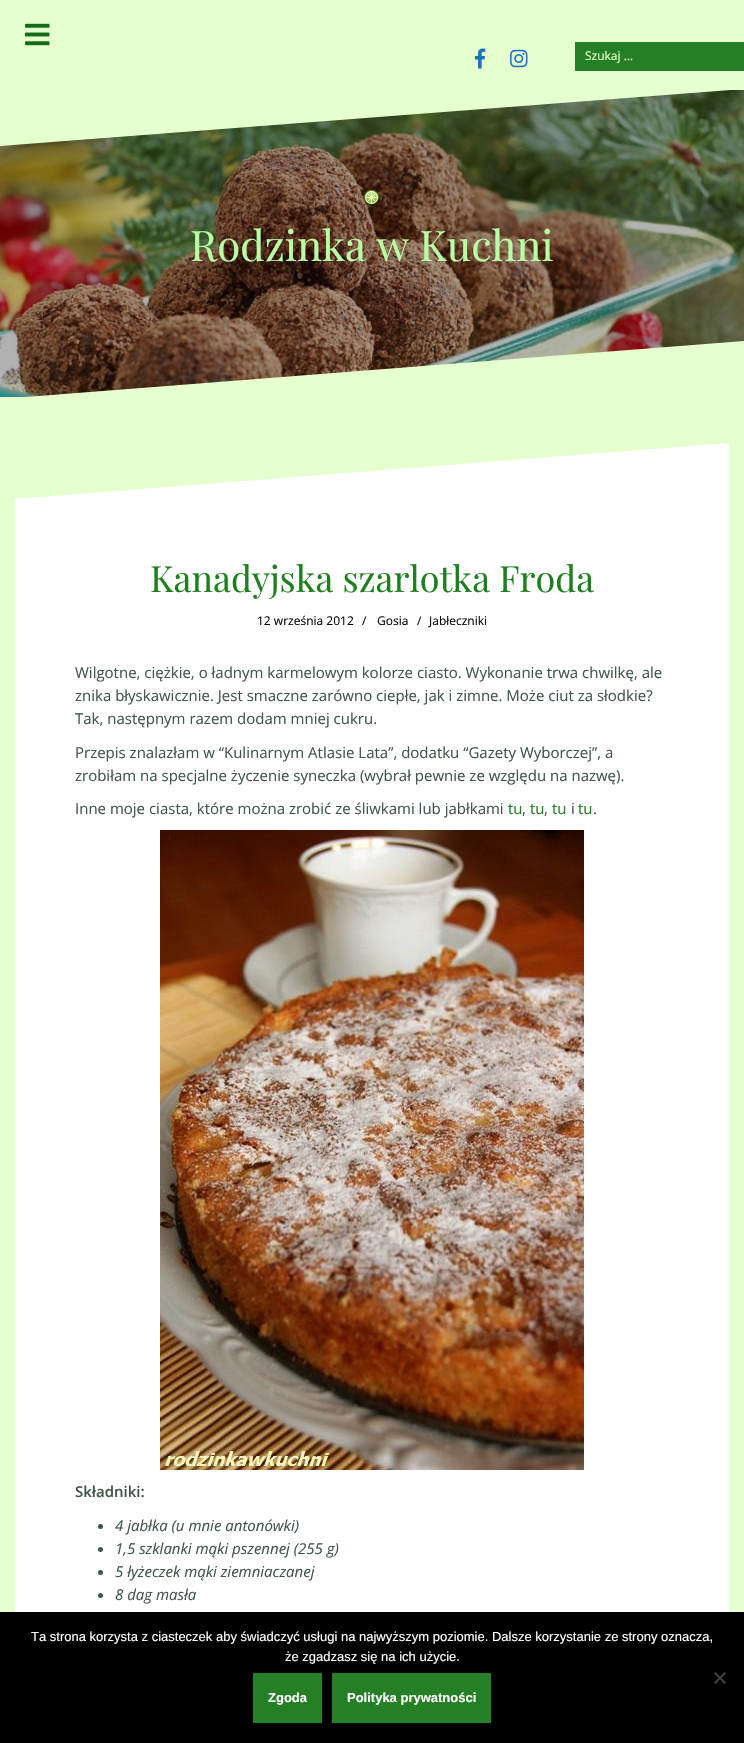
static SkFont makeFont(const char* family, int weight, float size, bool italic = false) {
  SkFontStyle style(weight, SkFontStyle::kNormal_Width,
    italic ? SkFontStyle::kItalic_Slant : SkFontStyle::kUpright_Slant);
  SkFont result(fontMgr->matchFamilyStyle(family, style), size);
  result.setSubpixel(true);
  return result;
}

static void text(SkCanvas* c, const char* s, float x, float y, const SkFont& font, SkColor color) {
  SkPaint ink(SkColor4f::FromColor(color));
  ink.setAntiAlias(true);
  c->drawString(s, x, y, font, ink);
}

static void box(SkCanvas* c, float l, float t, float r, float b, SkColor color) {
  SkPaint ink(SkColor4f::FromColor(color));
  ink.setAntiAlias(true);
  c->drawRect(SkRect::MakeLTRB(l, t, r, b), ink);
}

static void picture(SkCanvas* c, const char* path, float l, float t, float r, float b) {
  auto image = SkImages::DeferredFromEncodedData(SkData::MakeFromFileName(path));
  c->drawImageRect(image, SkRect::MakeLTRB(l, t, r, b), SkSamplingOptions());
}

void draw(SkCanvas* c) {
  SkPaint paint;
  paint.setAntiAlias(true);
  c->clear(0xffe6ffce);
  picture(c, "img_01.png", 25, 23, 50, 46);
  picture(c, "img_02.png", 475, 48, 486, 69);
  picture(c, "img_03.png", 510, 49, 528, 68);
  box(c, 575, 42, 744, 71, 0xff247f26);
  SkFont face1 = makeFont("Open Sans", 400, 12);
  text(c, "Szukaj …", 585, 60, face1, 0xffe7ffce);
  picture(c, "img_04.png", 0, 90, 744, 397);
  paint.setColor(0xffe6ffce);
  c->drawPath(SkPathBuilder().moveTo(0, 146).lineTo(0, 89).lineTo(744, 89).detach(), paint);
  picture(c, "img_05.png", 364, 190, 379, 206);
  SkFont face2 = makeFont("Playfair Display", 400, 42);
  text(c, "Rodzinka w Kuchni", 190, 261, face2, 0xffb9ffa5);
  c->drawPath(SkPathBuilder().moveTo(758, 340).lineTo(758, 399).lineTo(0, 399).detach(), paint);
  box(c, 15, 498, 729, 1612, 0xffffffff);
  c->save();
  c->clipRect(SkRect::MakeLTRB(15, 442, 729, 499));
  paint.setColor(0xffffffff);
  c->drawPath(SkPathBuilder().moveTo(742, 442).lineTo(742, 499).lineTo(15, 499).detach(), paint);
  c->restore();
  SkFont face3 = makeFont("Playfair Display", 400, 36);
  text(c, "Kanadyjska szarlotka Froda", 150, 592, face3, 0xff1e7f1e);
  text(c, "12 września 2012", 257, 625, face1, 0xff0a0a0a);
  text(c, "/", 362, 625, face1, 0xff0a0a0a);
  text(c, "Gosia", 377, 625, face1, 0xff0a0a0a);
  text(c, "/", 417, 625, face1, 0xff0a0a0a);
  text(c, "Jabłeczniki", 429, 625, face1, 0xff0a0a0a);
  SkFont face4 = makeFont("Open Sans", 400, 15);
  text(c, "Wilgotne, ciężkie, o ładnym karmelowym kolorze ciasto. Wykonanie trwa chwilkę, ale", 75, 678, face4, 0xff415649);
  text(c, "znika błyskawicznie. Jest smaczne zarówno ciepłe, jak i zimne. Może ciut za słodkie?", 75, 701, face4, 0xff415649);
  text(c, "Tak, następnym razem dodam mniej cukru.", 75, 724, face4, 0xff415649);
  text(c, "Przepis znalazłam w “Kulinarnym Atlasie Lata”, dodatku “Gazety Wyborczej”, a", 75, 758, face4, 0xff415649);
  text(c, "zrobiłam na specjalne życzenie syneczka (wybrał pewnie ze względu na nazwę).", 75, 781, face4, 0xff415649);
  text(c, "Inne moje ciasta, które można zrobić ze śliwkami lub jabłkami", 75, 814, face4, 0xff415649);
  text(c, "tu", 508, 814, face4, 0xff247f26);
  text(c, ",", 522, 814, face4, 0xff415649);
  text(c, "tu", 530, 814, face4, 0xff247f26);
  text(c, ",", 544, 814, face4, 0xff415649);
  text(c, "tu", 552, 814, face4, 0xff247f26);
  text(c, "i", 571, 814, face4, 0xff415649);
  text(c, "tu", 578, 814, face4, 0xff247f26);
  text(c, ".", 593, 814, face4, 0xff415649);
  picture(c, "img_06.png", 160, 830, 584, 1470);
  SkFont face5 = makeFont("Open Sans", 600, 15);
  text(c, "Składniki:", 75, 1497, face5, 0xff415649);
  paint.setColor(0xff415649);
  c->drawCircle(100.5f, 1526.5f, 2.5f, paint);
  SkFont face6 = makeFont("Open Sans", 400, 15, true);
  text(c, "4 jabłka (u mnie antonówki)", 115, 1531, face6, 0xff415649);
  c->drawCircle(100.5f, 1549.5f, 2.5f, paint);
  text(c, "1,5 szklanki mąki pszennej (255 g)", 115, 1554, face6, 0xff415649);
  c->drawCircle(100.5f, 1572.5f, 2.5f, paint);
  text(c, "5 łyżeczek mąki ziemniaczanej", 115, 1577, face6, 0xff415649);
  c->drawCircle(100.5f, 1595.5f, 2.5f, paint);
  text(c, "8 dag masła", 115, 1600, face6, 0xff415649);
  box(c, 0, 1612, 744, 1743, 0xff000000);
  SkFont face7 = makeFont("Liberation Sans", 400, 13);
  text(c, "Ta strona korzysta z ciasteczek aby świadczyć usługi na najwyższym poziomie. Dalsze korzystanie ze strony oznacza,", 31, 1641, face7, 0xffffffff);
  text(c, "że zgadzasz się na ich użycie.", 285, 1661, face7, 0xffffffff);
  paint.setColor(0xff404040);
  c->drawPath(SkPathBuilder().moveTo(724.5f, 1672).lineTo(726, 1673.5f).lineTo(715.5f, 1684).lineTo(714, 1682.5f).close().detach(), paint);
  c->drawPath(SkPathBuilder().moveTo(714, 1673.5f).lineTo(715.5f, 1672).lineTo(726, 1682.5f).lineTo(724.5f, 1684).close().detach(), paint);
  box(c, 253, 1673, 322, 1723, 0xff247f26);
  SkFont face8 = makeFont("Liberation Sans", 700, 13);
  text(c, "Zgoda", 268, 1702, face8, 0xffffffff);
  box(c, 332, 1673, 491, 1723, 0xff247f26);
  text(c, "Polityka prywatności", 347, 1702, face8, 0xffffffff);
}
